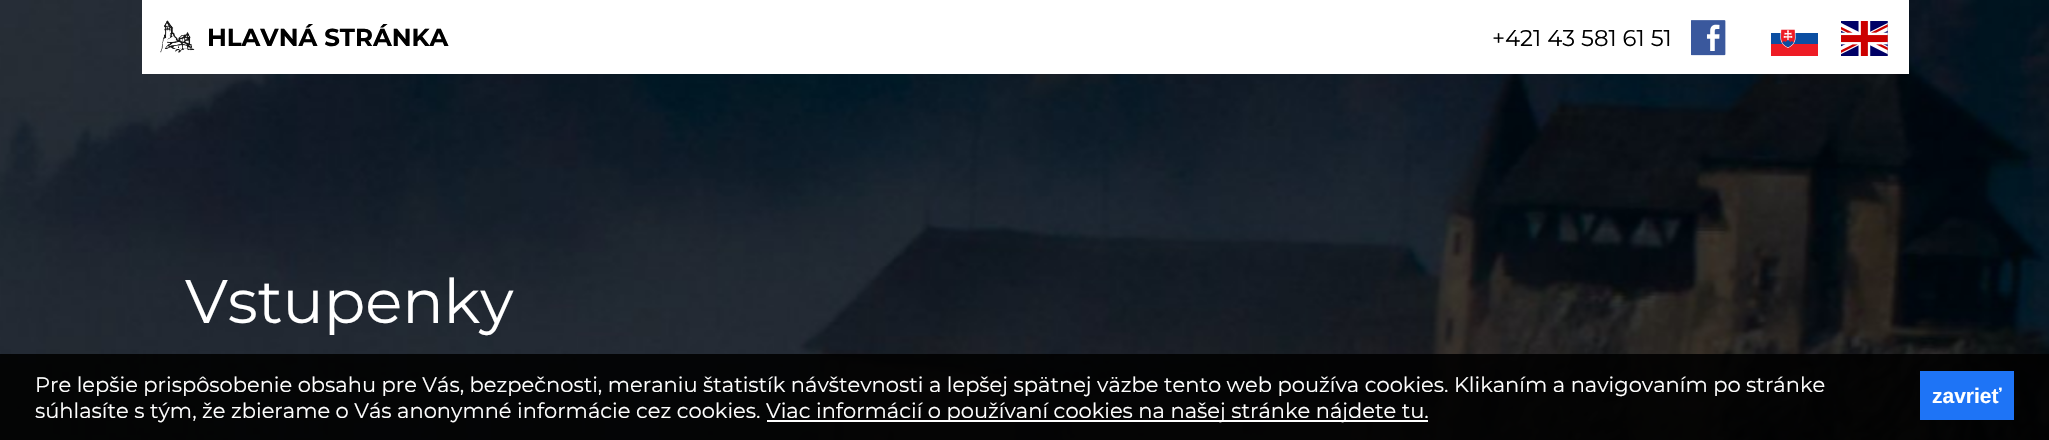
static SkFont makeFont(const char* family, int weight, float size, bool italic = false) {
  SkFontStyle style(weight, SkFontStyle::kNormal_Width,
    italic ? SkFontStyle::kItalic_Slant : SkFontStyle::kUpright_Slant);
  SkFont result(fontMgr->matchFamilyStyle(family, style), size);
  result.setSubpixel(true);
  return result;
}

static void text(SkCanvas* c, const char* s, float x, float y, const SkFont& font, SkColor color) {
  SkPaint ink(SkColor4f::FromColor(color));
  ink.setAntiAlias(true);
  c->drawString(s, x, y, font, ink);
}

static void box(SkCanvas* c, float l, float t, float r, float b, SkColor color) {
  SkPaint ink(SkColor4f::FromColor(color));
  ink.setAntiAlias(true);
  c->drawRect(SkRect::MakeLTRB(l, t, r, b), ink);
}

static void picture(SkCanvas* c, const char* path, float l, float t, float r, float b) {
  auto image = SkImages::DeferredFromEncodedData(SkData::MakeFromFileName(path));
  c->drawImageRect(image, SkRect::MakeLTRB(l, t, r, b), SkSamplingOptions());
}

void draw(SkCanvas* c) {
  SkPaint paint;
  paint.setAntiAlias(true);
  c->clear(0xffffffff);
  picture(c, "img_01.png", 0, 0, 2049, 440);
  box(c, 142, 0, 1909, 74, 0xffffffff);
  picture(c, "img_02.png", 160, 20, 195, 53);
  SkFont face1 = makeFont("Montserrat", 700, 24.5f);
  text(c, "HLAVNÁ STRÁNKA", 207, 46, face1, 0xff000000);
  SkFont face2 = makeFont("Montserrat", 400, 22.75f);
  text(c, "+421 43 581 61 51", 1492, 46, face2, 0xff000000);
  picture(c, "img_03.png", 1691, 20, 1726, 56);
  picture(c, "img_04.png", 1771, 29, 1818, 56);
  picture(c, "img_05.png", 1841, 21, 1888, 56);
  SkFont face3 = makeFont("Montserrat", 400, 61.25f);
  text(c, "Vstupenky", 185, 323, face3, 0xffffffff);
  box(c, 0, 354, 2049, 440, 0xe6000000);
  SkFont face4 = makeFont("Montserrat", 400, 21);
  text(c, "Pre lepšie prispôsobenie obsahu pre Vás, bezpečnosti, meraniu štatistík návštevnosti a lepšej spätnej väzbe tento web používa cookies. Klikaním a navigovaním po stránke", 35, 392, face4, 0xffffffff);
  box(c, 1920, 371, 2014, 420, 0xff1e74f6);
  SkFont face5 = makeFont("Liberation Sans", 700, 21);
  text(c, "zavrieť", 1932, 403, face5, 0xffffffff);
  text(c, "súhlasíte s tým, že zbierame o Vás anonymné informácie cez cookies.", 35, 418, face4, 0xffffffff);
  box(c, 767, 420, 1428, 422, 0xffffffff);
  text(c, "Viac informácií o používaní cookies na našej stránke nájdete tu.", 766, 418, face4, 0xffffffff);
}
